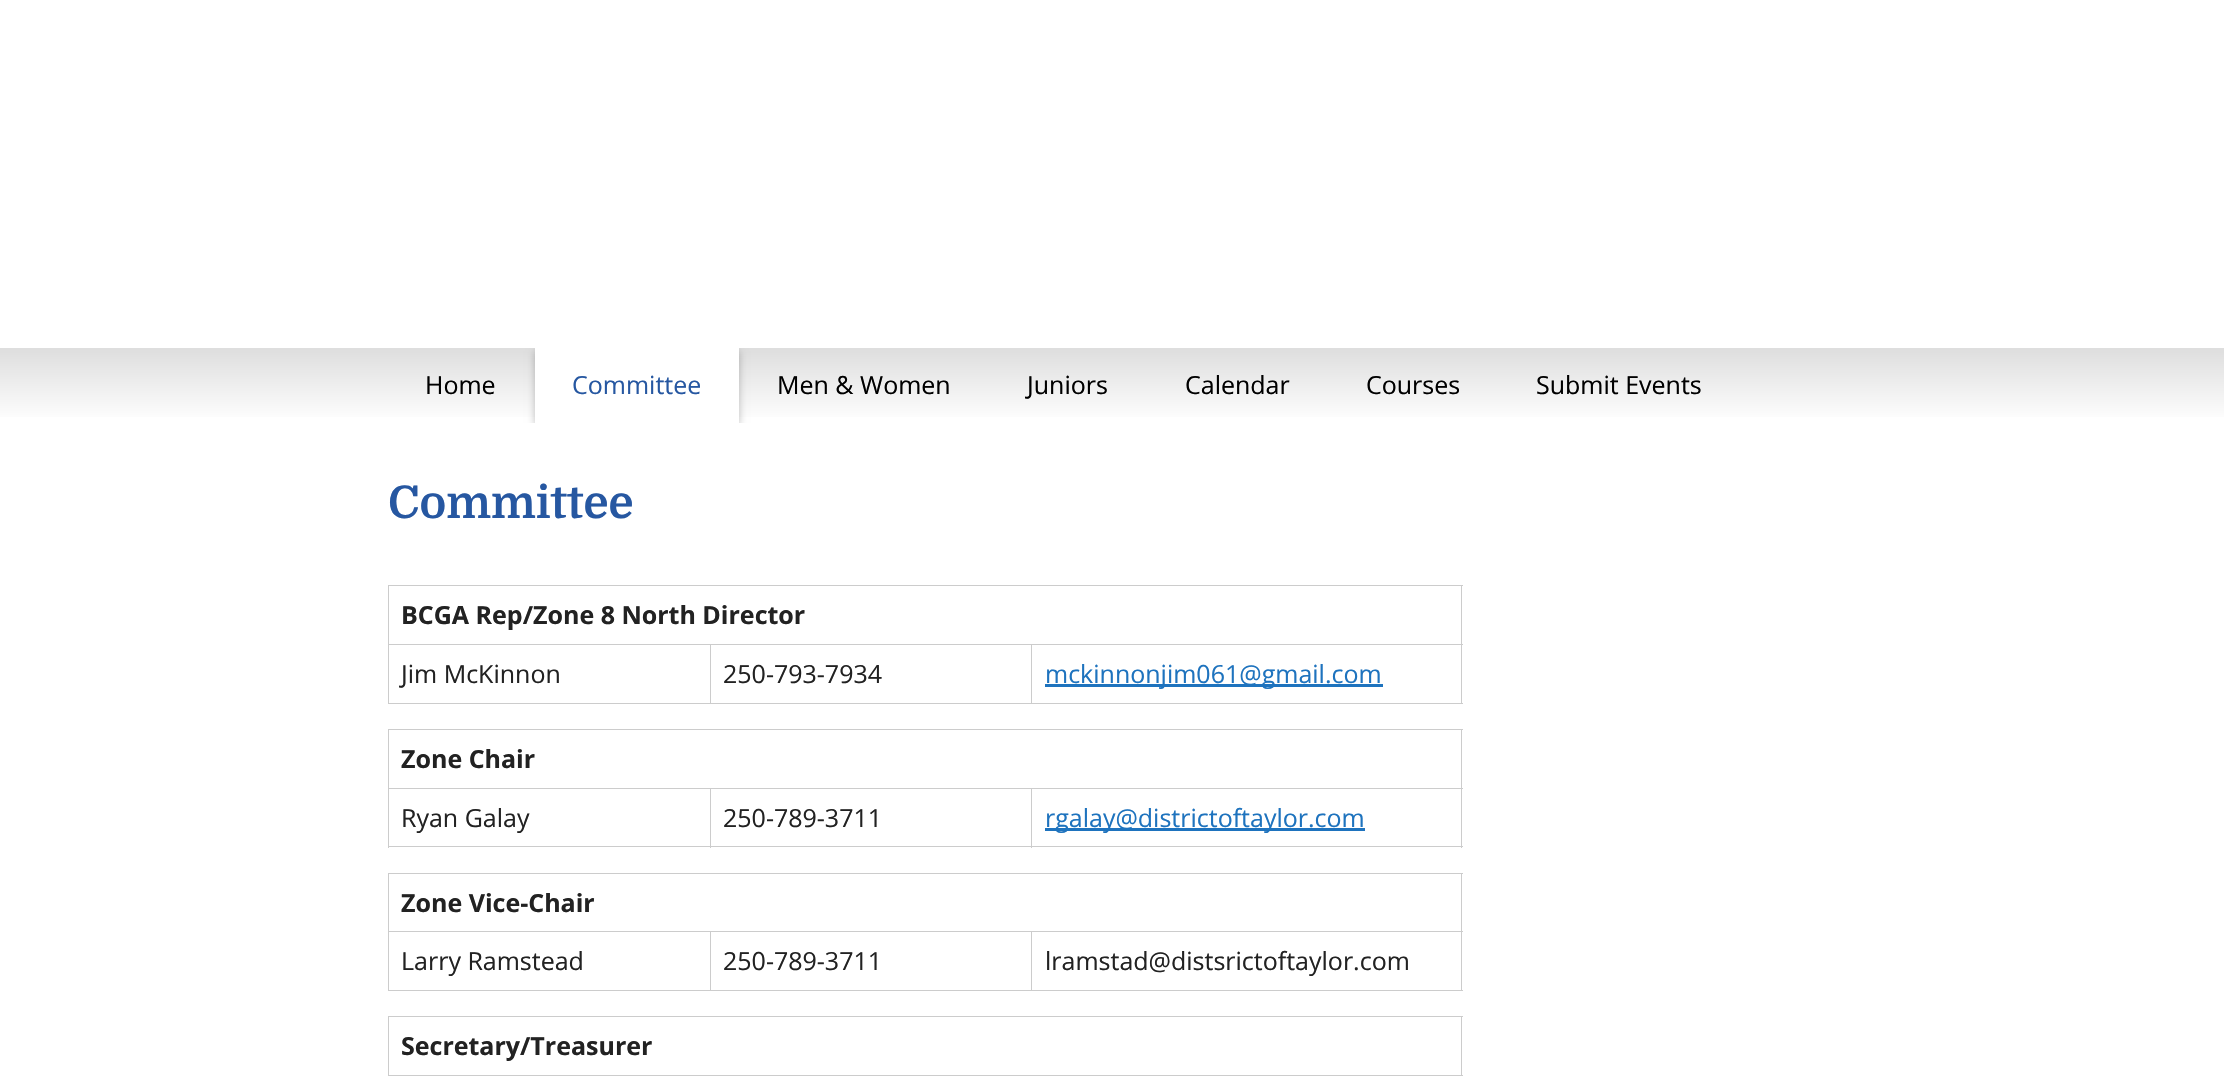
static SkFont makeFont(const char* family, int weight, float size, bool italic = false) {
  SkFontStyle style(weight, SkFontStyle::kNormal_Width,
    italic ? SkFontStyle::kItalic_Slant : SkFontStyle::kUpright_Slant);
  SkFont result(fontMgr->matchFamilyStyle(family, style), size);
  result.setSubpixel(true);
  return result;
}

static void text(SkCanvas* c, const char* s, float x, float y, const SkFont& font, SkColor color) {
  SkPaint ink(SkColor4f::FromColor(color));
  ink.setAntiAlias(true);
  c->drawString(s, x, y, font, ink);
}

static void box(SkCanvas* c, float l, float t, float r, float b, SkColor color) {
  SkPaint ink(SkColor4f::FromColor(color));
  ink.setAntiAlias(true);
  c->drawRect(SkRect::MakeLTRB(l, t, r, b), ink);
}

void draw(SkCanvas* c) {
  SkPaint paint;
  paint.setAntiAlias(true);
  c->clear(0xffffffff);
  {
    const SkColor colors[] = {0xffdddddd, 0xffffffff};
    const float stops[] = {0, 1};
    const SkPoint ends[] = {{1113, 347}, {1113, 423}};
    paint.setShader(SkGradientShader::MakeLinear(ends, colors, stops, 2, SkTileMode::kClamp));
    paint.setAlpha(255);
  }
  c->drawRect(SkRect::MakeLTRB(0, 348, 2224, 417), paint);
  SkFont face1 = makeFont("Open Sans", 400, 25);
  text(c, "Home", 425, 394, face1, 0xff000000);
  c->save();
  c->clipRect(SkRect::MakeLTRB(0, 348, 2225, 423));
  paint.setShader(nullptr);
  paint.setColor(0x40000000);
  paint.setMaskFilter(SkMaskFilter::MakeBlur(kNormal_SkBlurStyle, 4));
  c->drawRect(SkRect::MakeLTRB(535, 351, 739, 426), paint);
  paint.setMaskFilter(nullptr);
  c->restore();
  box(c, 535, 348, 739, 423, 0xffffffff);
  text(c, "Committee", 572, 394, face1, 0xff2657a1);
  text(c, "Men & Women", 777, 394, face1, 0xff000000);
  text(c, "Juniors", 1027, 394, face1, 0xff000000);
  text(c, "Calendar", 1185, 394, face1, 0xff000000);
  text(c, "Courses", 1366, 394, face1, 0xff000000);
  text(c, "Submit Events", 1536, 394, face1, 0xff000000);
  SkFont face2 = makeFont("Domine", 700, 45);
  text(c, "Committee", 388, 518, face2, 0xff2657a1);
  box(c, 388, 585, 1463, 586, 0xffcccccc);
  box(c, 1031, 644, 1463, 645, 0xffcccccc);
  box(c, 1461, 644, 1462, 704, 0xffcccccc);
  box(c, 1461, 585, 1462, 645, 0xffcccccc);
  box(c, 1031, 703, 1463, 704, 0xffcccccc);
  box(c, 1031, 644, 1032, 704, 0xffcccccc);
  box(c, 710, 644, 1033, 645, 0xffcccccc);
  box(c, 710, 703, 1033, 704, 0xffcccccc);
  box(c, 710, 644, 711, 704, 0xffcccccc);
  box(c, 388, 644, 711, 645, 0xffcccccc);
  box(c, 388, 703, 711, 704, 0xffcccccc);
  box(c, 388, 644, 389, 704, 0xffcccccc);
  box(c, 388, 585, 389, 645, 0xffcccccc);
  SkFont face3 = makeFont("Open Sans", 700, 25);
  text(c, "BCGA Rep/Zone 8 North Director", 401, 624, face3, 0xff222222);
  text(c, "Jim McKinnon", 401, 683, face1, 0xff222222);
  text(c, "250-793-7934", 723, 683, face1, 0xff222222);
  box(c, 1045, 684, 1383, 687, 0xff1e73be);
  text(c, "mckinnonjim061@gmail.com", 1045, 683, face1, 0xff1e73be);
  box(c, 388, 729, 1463, 730, 0xffcccccc);
  box(c, 1031, 788, 1463, 789, 0xffcccccc);
  box(c, 1461, 788, 1462, 848, 0xffcccccc);
  box(c, 1461, 729, 1462, 789, 0xffcccccc);
  box(c, 1031, 846, 1463, 847, 0xffcccccc);
  box(c, 1031, 788, 1032, 848, 0xffcccccc);
  box(c, 710, 788, 1033, 789, 0xffcccccc);
  box(c, 710, 846, 1033, 847, 0xffcccccc);
  box(c, 710, 788, 711, 848, 0xffcccccc);
  box(c, 388, 788, 711, 789, 0xffcccccc);
  box(c, 388, 846, 711, 847, 0xffcccccc);
  box(c, 388, 788, 389, 848, 0xffcccccc);
  box(c, 388, 729, 389, 789, 0xffcccccc);
  text(c, "Zone Chair", 401, 768, face3, 0xff222222);
  text(c, "Ryan Galay", 401, 827, face1, 0xff222222);
  text(c, "250-789-3711", 723, 827, face1, 0xff222222);
  box(c, 1045, 828, 1365, 831, 0xff1e73be);
  text(c, "rgalay@districtoftaylor.com", 1045, 827, face1, 0xff1e73be);
  box(c, 388, 873, 1463, 874, 0xffcccccc);
  box(c, 1031, 931, 1463, 932, 0xffcccccc);
  box(c, 1461, 931, 1462, 991, 0xffcccccc);
  box(c, 1461, 873, 1462, 933, 0xffcccccc);
  box(c, 1031, 990, 1463, 991, 0xffcccccc);
  box(c, 1031, 931, 1032, 991, 0xffcccccc);
  box(c, 710, 931, 1033, 932, 0xffcccccc);
  box(c, 710, 990, 1033, 991, 0xffcccccc);
  box(c, 710, 931, 711, 991, 0xffcccccc);
  box(c, 388, 931, 711, 932, 0xffcccccc);
  box(c, 388, 990, 711, 991, 0xffcccccc);
  box(c, 388, 931, 389, 991, 0xffcccccc);
  box(c, 388, 873, 389, 933, 0xffcccccc);
  text(c, "Zone Vice-Chair", 401, 912, face3, 0xff222222);
  text(c, "Larry Ramstead", 401, 970, face1, 0xff222222);
  text(c, "250-789-3711", 723, 970, face1, 0xff222222);
  text(c, "lramstad@distsrictoftaylor.com", 1045, 970, face1, 0xff222222);
  box(c, 388, 1016, 1463, 1017, 0xffcccccc);
  box(c, 388, 1075, 1463, 1076, 0xffcccccc);
  box(c, 1461, 1016, 1462, 1076, 0xffcccccc);
  box(c, 388, 1016, 389, 1076, 0xffcccccc);
  text(c, "Secretary/Treasurer", 401, 1055, face3, 0xff222222);
}
